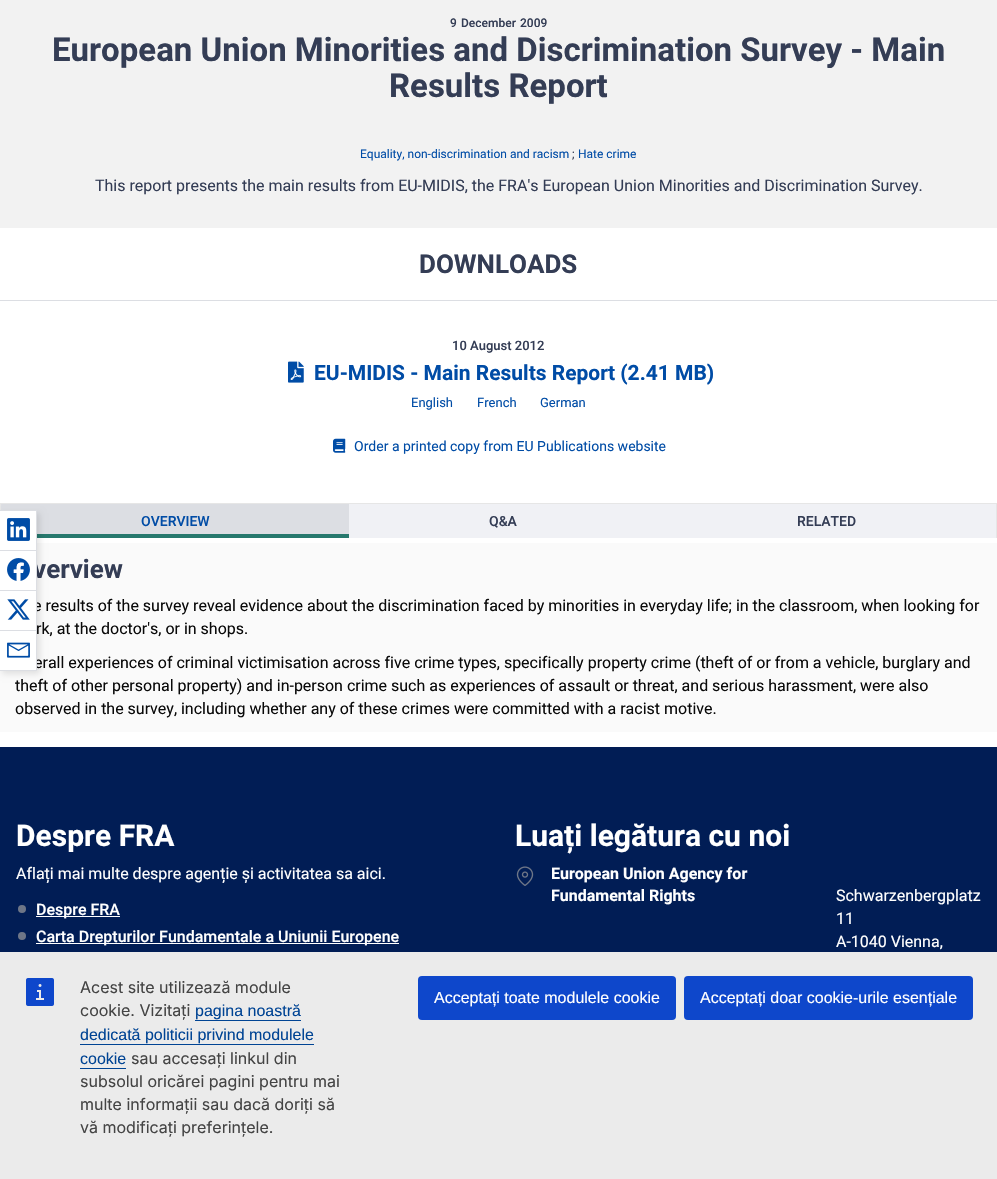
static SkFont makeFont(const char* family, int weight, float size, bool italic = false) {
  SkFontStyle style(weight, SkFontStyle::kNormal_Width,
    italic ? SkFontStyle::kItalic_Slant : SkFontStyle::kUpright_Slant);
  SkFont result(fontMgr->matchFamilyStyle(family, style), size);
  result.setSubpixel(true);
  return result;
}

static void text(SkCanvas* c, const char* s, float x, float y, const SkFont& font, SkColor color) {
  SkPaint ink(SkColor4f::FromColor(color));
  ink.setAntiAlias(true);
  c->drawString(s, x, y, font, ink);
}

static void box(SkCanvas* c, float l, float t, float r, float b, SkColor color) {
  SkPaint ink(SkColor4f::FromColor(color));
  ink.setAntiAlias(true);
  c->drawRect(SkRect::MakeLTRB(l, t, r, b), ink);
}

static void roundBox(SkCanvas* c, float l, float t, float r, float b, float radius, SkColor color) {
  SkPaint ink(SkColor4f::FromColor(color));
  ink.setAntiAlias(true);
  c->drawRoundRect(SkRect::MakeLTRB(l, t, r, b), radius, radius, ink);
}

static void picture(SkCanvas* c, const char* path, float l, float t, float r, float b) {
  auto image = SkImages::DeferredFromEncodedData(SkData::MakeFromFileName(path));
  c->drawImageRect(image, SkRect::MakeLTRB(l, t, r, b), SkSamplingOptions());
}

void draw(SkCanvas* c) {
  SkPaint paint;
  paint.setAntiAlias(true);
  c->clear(0xffffffff);
  box(c, 0, 0, 997, 228, 0xfff2f2f2);
  SkFont face1 = makeFont("Roboto", 500, 12);
  text(c, "9", 450, 27, face1, 0xff343d55);
  text(c, "December", 461, 27, face1, 0xff343d55);
  text(c, "2009", 520, 27, face1, 0xff343d55);
  SkFont face2 = makeFont("Roboto", 700, 33);
  text(c, "European Union Minorities and Discrimination Survey - Main", 52, 61, face2, 0xff343d55);
  text(c, "Results Report", 389, 97, face2, 0xff343d55);
  SkFont face3 = makeFont("Roboto", 400, 12);
  text(c, "Equality, non-discrimination and racism", 360, 158, face3, 0xff004ca6);
  text(c, ";", 572, 158, face3, 0xff343d55);
  text(c, "Hate crime", 578, 158, face3, 0xff004ca6);
  SkFont face4 = makeFont("Roboto", 400, 16);
  text(c, "This report presents the main results from EU-MIDIS, the FRA's European Union Minorities and Discrimination Survey.", 95, 191, face4, 0xff343d55);
  SkFont face5 = makeFont("Roboto", 700, 26);
  text(c, "DOWNLOADS", 419, 273, face5, 0xff343d55);
  box(c, 0, 300, 997, 301, 0xffdcdee3);
  SkFont face6 = makeFont("Roboto", 500, 13);
  text(c, "10 August 2012", 452, 350, face6, 0xff343d55);
  picture(c, "img_01.png", 288, 361, 304, 383);
  SkFont face7 = makeFont("Roboto", 700, 21);
  text(c, "EU-MIDIS - Main Results Report (2.41 MB)", 314, 380, face7, 0xff004ca6);
  SkFont face8 = makeFont("Roboto", 400, 13);
  text(c, "English", 411, 407, face8, 0xff004ca6);
  text(c, "French", 477, 407, face8, 0xff004ca6);
  text(c, "German", 540, 407, face8, 0xff004ca6);
  picture(c, "img_02.png", 333, 438, 346, 453);
  SkFont face9 = makeFont("Roboto", 400, 14);
  text(c, "Order a printed copy from EU Publications website", 354, 451, face9, 0xff004ca6);
  box(c, 0, 503, 997, 504, 0xffe6e6e6);
  box(c, 996, 503, 997, 538, 0xffe6e6e6);
  box(c, 0, 503, 1, 510, 0xffe6e6e6);
  box(c, 1, 504, 349, 534, 0xffdcdee3);
  SkFont face10 = makeFont("Roboto", 500, 14);
  text(c, "OVERVIEW", 141, 526, face10, 0xff004ca6);
  box(c, 37, 534, 349, 538, 0xff26786d);
  box(c, 349, 504, 996, 538, 0xfff0f1f5);
  text(c, "Q&A", 489, 526, face10, 0xff343d55);
  text(c, "RELATED", 797, 526, face10, 0xff343d55);
  box(c, 0, 543, 997, 732, 0xfffafafa);
  text(c, "verview", 33, 578, face5, 0xff343d55);
  text(c, "e results of the survey reveal evidence about the discrimination faced by minorities in everyday life; in the classroom, when looking for", 33, 611, face4, 0xff0a0a0a);
  text(c, "rk, at the doctor's, or in shops.", 36, 634, face4, 0xff0a0a0a);
  text(c, "erall experiences of criminal victimisation across five crime types, specifically property crime (theft of or from a vehicle, burglary and", 34, 668, face4, 0xff0a0a0a);
  text(c, "theft of other personal property) and in-person crime such as experiences of assault or threat, and serious harassment, were also", 15, 691, face4, 0xff0a0a0a);
  text(c, "observed in the survey, including whether any of these crimes were committed with a racist motive.", 15, 714, face4, 0xff0a0a0a);
  paint.setColor(0x1a000000);
  paint.setMaskFilter(SkMaskFilter::MakeBlur(kNormal_SkBlurStyle, 3));
  c->drawRect(SkRect::MakeLTRB(2, 513, 40, 674), paint);
  paint.setMaskFilter(nullptr);
  box(c, 0, 511, 36, 670, 0xffffffff);
  box(c, 36, 510, 37, 671, 0xffdcdee3);
  box(c, 0, 670, 37, 671, 0xffdcdee3);
  box(c, 0, 510, 36, 511, 0xffdcdee3);
  picture(c, "img_03.png", 7, 518, 30, 541);
  box(c, 0, 550, 36, 551, 0xffdcdee3);
  picture(c, "img_04.png", 7, 558, 30, 581);
  box(c, 0, 590, 36, 591, 0xffdcdee3);
  picture(c, "img_05.png", 7, 599, 30, 620);
  box(c, 0, 630, 36, 631, 0xffdcdee3);
  picture(c, "img_06.png", 7, 642, 30, 658);
  box(c, 0, 747, 997, 952, 0xff011d55);
  SkFont face11 = makeFont("Roboto", 700, 30);
  text(c, "Despre FRA", 16, 846, face11, 0xffffffff);
  text(c, "Aflați mai multe despre agenție și activitatea sa aici.", 16, 879, face4, 0xffffffff);
  paint.setColor(0xff6e7687);
  c->drawCircle(22, 909, 4, paint);
  box(c, 36, 916, 120, 917, 0xffffffff);
  SkFont face12 = makeFont("Roboto", 500, 16);
  text(c, "Despre FRA", 36, 915, face12, 0xffffffff);
  c->drawCircle(22, 936, 4, paint);
  box(c, 36, 943, 399, 944, 0xffffffff);
  text(c, "Carta Drepturilor Fundamentale a Uniunii Europene", 36, 942, face12, 0xffffffff);
  text(c, "Luați legătura cu noi", 515, 846, face11, 0xffffffff);
  picture(c, "img_07.png", 516, 866, 534, 886);
  SkFont face13 = makeFont("Roboto", 700, 16);
  text(c, "European Union Agency for", 551, 879, face13, 0xffffffff);
  text(c, "Fundamental Rights", 551, 901, face13, 0xffffffff);
  text(c, "Schwarzenbergplatz", 836, 901, face4, 0xffffffff);
  text(c, "11", 836, 924, face4, 0xffffffff);
  text(c, "A-1040 Vienna,", 836, 947, face4, 0xffffffff);
  box(c, 0, 952, 997, 1179, 0xffebebeb);
  picture(c, "img_08.png", 26, 978, 54, 1006);
  SkFont face14 = makeFont("Inter", 400, 16);
  text(c, "Acest site utilizează module", 80, 993, face14, 0xff444444);
  text(c, "cookie. Vizitați", 80, 1016, face14, 0xff444444);
  SkFont face15 = makeFont("Liberation Sans", 400, 16);
  text(c, "pagina noastră", 195, 1016, face15, 0xff004494);
  box(c, 195, 1020, 301, 1021, 0xff004494);
  text(c, "dedicată politicii privind modulele", 80, 1040, face15, 0xff004494);
  box(c, 80, 1044, 314, 1045, 0xff004494);
  text(c, "cookie", 80, 1064, face15, 0xff004494);
  box(c, 80, 1068, 126, 1069, 0xff004494);
  text(c, "sau accesați linkul din", 131, 1064, face14, 0xff444444);
  text(c, "subsolul oricărei pagini pentru mai", 80, 1087, face14, 0xff444444);
  text(c, "multe informații sau dacă doriți să", 80, 1110, face14, 0xff444444);
  text(c, "vă modificați preferințele.", 80, 1133, face14, 0xff444444);
  roundBox(c, 418, 976, 676, 1020, 4, 0xff0e47cb);
  text(c, "Acceptați toate modulele cookie", 434, 1003, face15, 0xffffffff);
  roundBox(c, 684, 976, 973, 1020, 4, 0xff0e47cb);
  text(c, "Acceptați doar cookie-urile esențiale", 700, 1003, face15, 0xffffffff);
}
